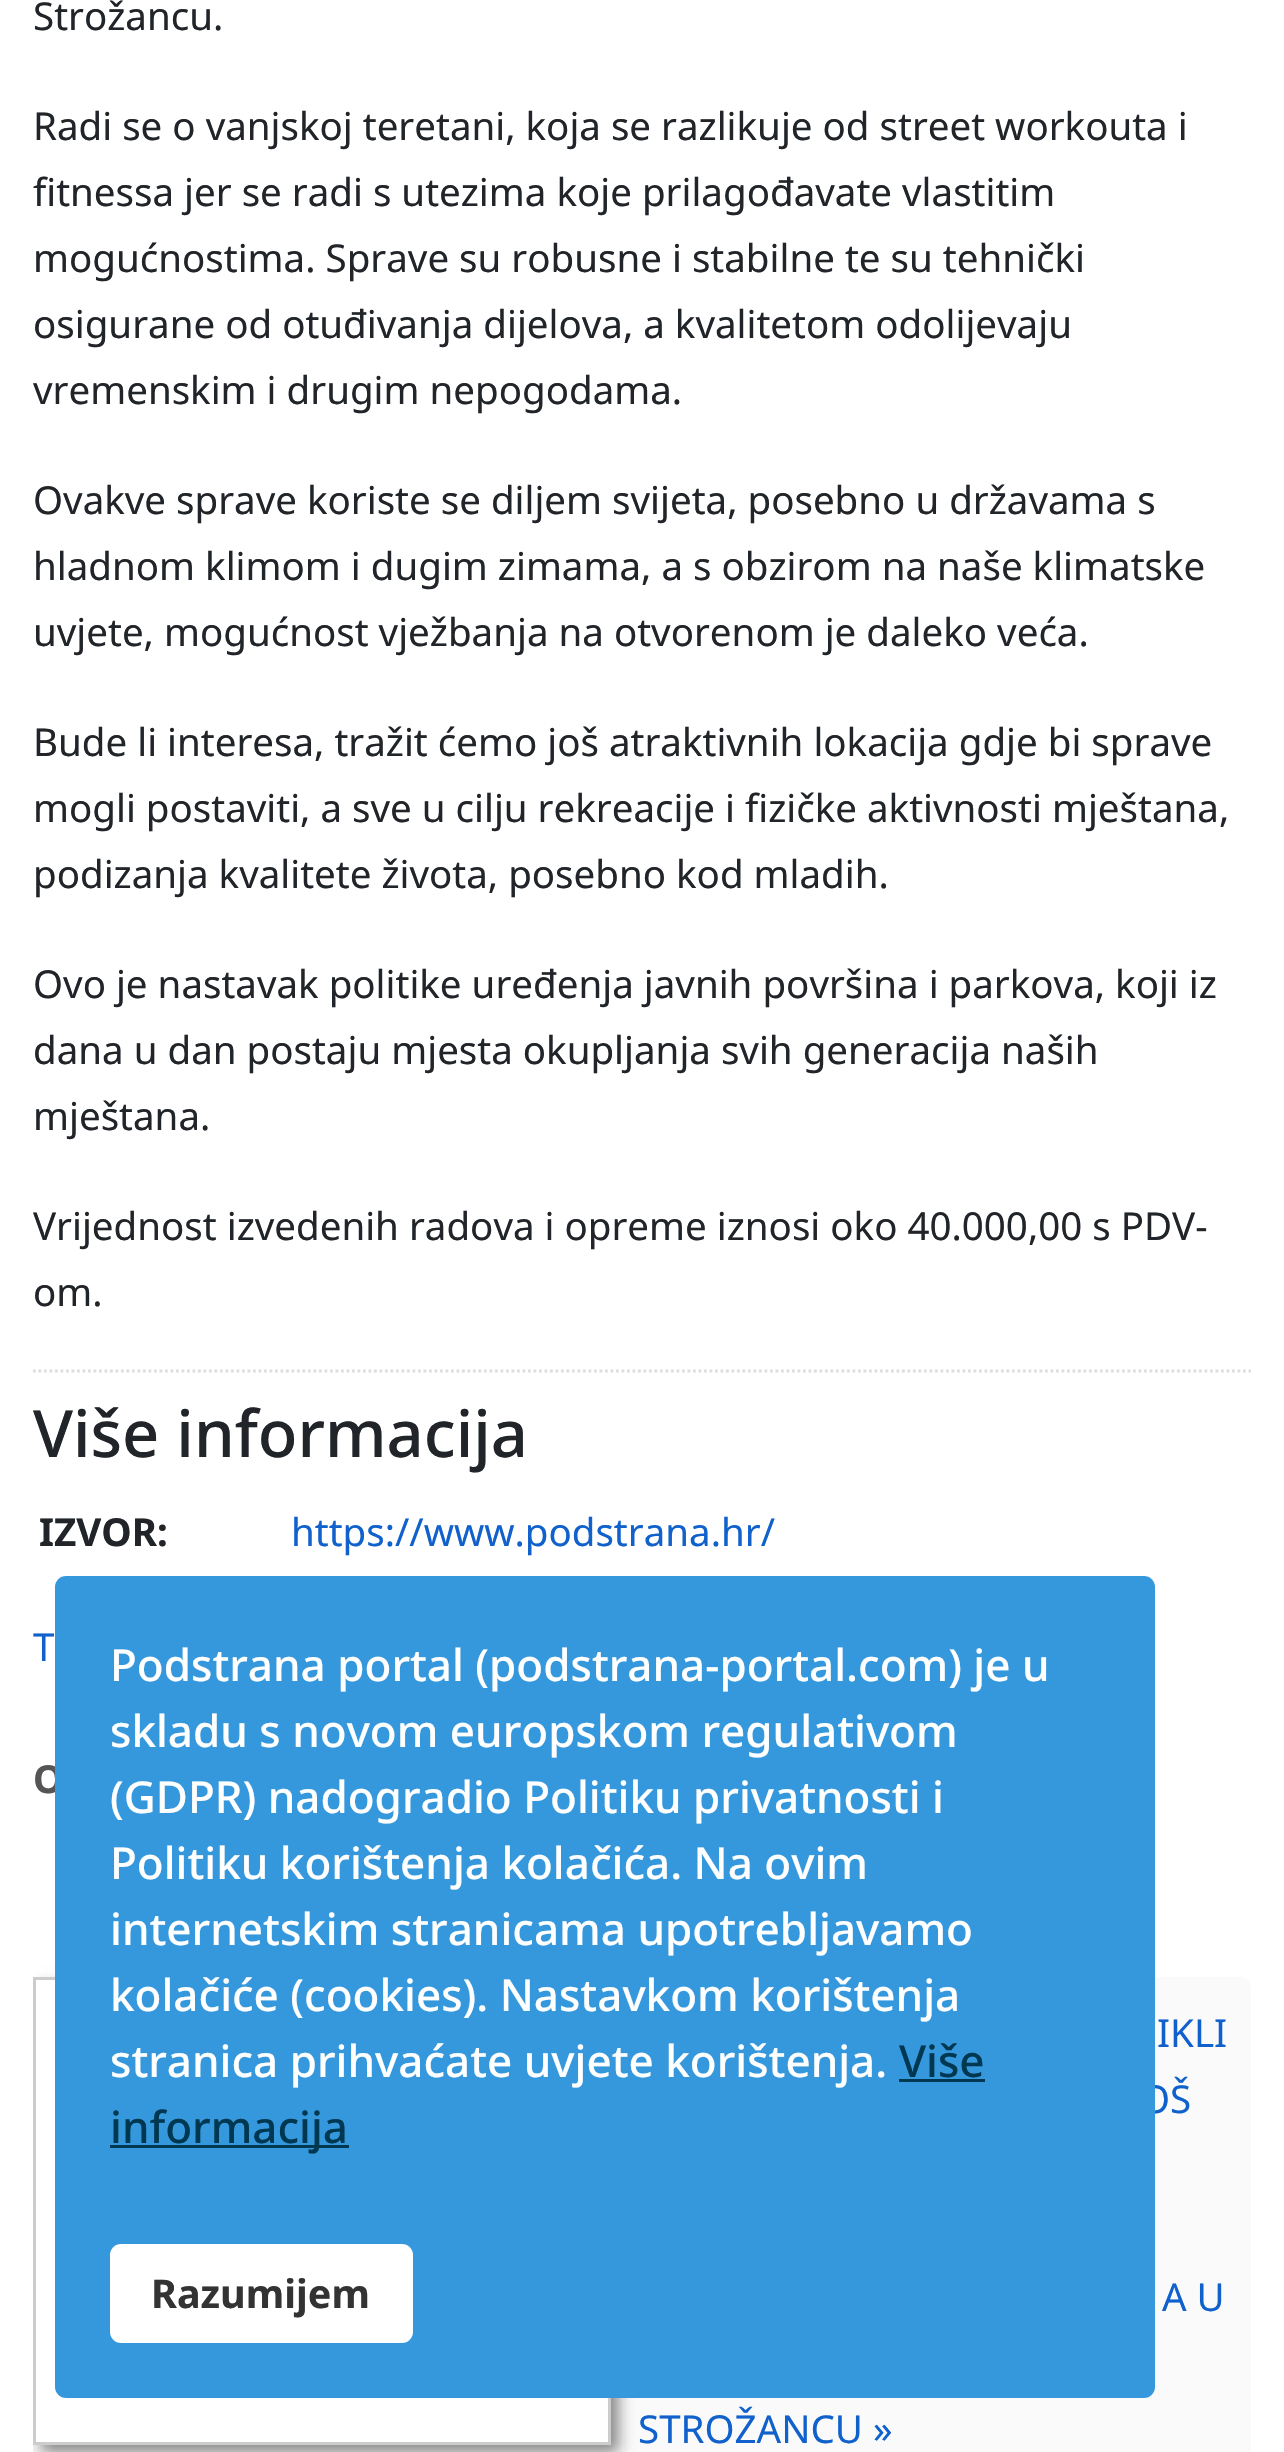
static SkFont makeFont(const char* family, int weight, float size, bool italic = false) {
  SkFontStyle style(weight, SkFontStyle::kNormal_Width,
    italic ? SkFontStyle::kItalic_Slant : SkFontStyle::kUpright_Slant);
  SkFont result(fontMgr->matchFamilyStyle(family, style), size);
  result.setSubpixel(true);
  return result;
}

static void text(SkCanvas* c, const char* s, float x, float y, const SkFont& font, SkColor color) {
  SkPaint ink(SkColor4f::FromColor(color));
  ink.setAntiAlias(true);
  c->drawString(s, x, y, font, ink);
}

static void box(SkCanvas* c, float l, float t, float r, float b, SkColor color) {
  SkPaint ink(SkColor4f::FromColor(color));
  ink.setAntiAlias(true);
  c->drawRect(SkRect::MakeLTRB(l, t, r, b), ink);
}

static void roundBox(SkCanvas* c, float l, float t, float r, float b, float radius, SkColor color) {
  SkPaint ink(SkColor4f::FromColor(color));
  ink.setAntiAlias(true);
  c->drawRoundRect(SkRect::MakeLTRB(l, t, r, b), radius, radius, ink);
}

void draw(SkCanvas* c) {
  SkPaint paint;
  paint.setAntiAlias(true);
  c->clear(0xffffffff);
  SkFont face1 = makeFont("Noto Sans", 400, 38.5f);
  text(c, "Strožancu.", 33, 30, face1, 0xff212529);
  text(c, "Radi se o vanjskoj teretani, koja se razlikuje od street workouta i", 33, 140, face1, 0xff212529);
  text(c, "fitnessa jer se radi s utezima koje prilagođavate vlastitim", 33, 206, face1, 0xff212529);
  text(c, "mogućnostima. Sprave su robusne i stabilne te su tehnički", 33, 272, face1, 0xff212529);
  text(c, "osigurane od otuđivanja dijelova, a kvalitetom odolijevaju", 33, 338, face1, 0xff212529);
  text(c, "vremenskim i drugim nepogodama.", 33, 404, face1, 0xff212529);
  text(c, "Ovakve sprave koriste se diljem svijeta, posebno u državama s", 33, 514, face1, 0xff212529);
  text(c, "hladnom klimom i dugim zimama, a s obzirom na naše klimatske", 33, 580, face1, 0xff212529);
  text(c, "uvjete, mogućnost vježbanja na otvorenom je daleko veća.", 33, 646, face1, 0xff212529);
  text(c, "Bude li interesa, tražit ćemo još atraktivnih lokacija gdje bi sprave", 33, 756, face1, 0xff212529);
  text(c, "mogli postaviti, a sve u cilju rekreacije i fizičke aktivnosti mještana,", 33, 822, face1, 0xff212529);
  text(c, "podizanja kvalitete života, posebno kod mladih.", 33, 888, face1, 0xff212529);
  text(c, "Ovo je nastavak politike uređenja javnih površina i parkova, koji iz", 33, 998, face1, 0xff212529);
  text(c, "dana u dan postaju mjesta okupljanja svih generacija naših", 33, 1064, face1, 0xff212529);
  text(c, "mještana.", 33, 1130, face1, 0xff212529);
  text(c, "Vrijednost izvedenih radova i opreme iznosi oko 40.000,00 s PDV-", 33, 1240, face1, 0xff212529);
  text(c, "om.", 33, 1306, face1, 0xff212529);
  paint.setStyle(SkPaint::kStroke_Style);
  paint.setStrokeWidth(2.8f);
  paint.setColor(0xffdddddd);
  paint.setPathEffect(SkDashPathEffect::Make({{2.75f, 2.75f}}, 0));
  c->drawPath(SkPathBuilder().moveTo(33, 1371).lineTo(1251, 1371).detach(), paint);
  paint.setPathEffect(nullptr);
  SkFont face2 = makeFont("Noto Sans", 500, 65);
  text(c, "Više informacija", 33, 1457, face2, 0xff212529);
  SkFont face3 = makeFont("Noto Sans", 700, 38.5f);
  text(c, "IZVOR:", 39, 1546, face3, 0xff212529);
  text(c, "https://www.podstrana.hr/", 291, 1546, face1, 0xff1061cc);
  text(c, "T", 33, 1661, face1, 0xff1061cc);
  text(c, "O", 33, 1793, face3, 0xff555555);
  roundBox(c, 33, 1977, 1251, 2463, 11, 0xfffafafa);
  box(c, 47, 2398, 624, 2452, 0xffffffff);
  c->save();
  c->clipRect(SkRect::MakeLTRB(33, 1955, 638, 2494));
  paint.setStyle(SkPaint::kFill_Style);
  paint.setColor(0xff888888);
  paint.setMaskFilter(SkMaskFilter::MakeBlur(kNormal_SkBlurStyle, 7));
  c->drawRect(SkRect::MakeLTRB(41, 1986, 619, 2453), paint);
  paint.setMaskFilter(nullptr);
  c->restore();
  paint.setColor(0xffffffff);
  c->drawRect(SkRect::MakeLTRB(34.5f, 1978.5f, 609.5f, 2443.5f), paint);
  paint.setStyle(SkPaint::kStroke_Style);
  paint.setStrokeWidth(3);
  paint.setColor(0xffcccccc);
  c->drawRect(SkRect::MakeLTRB(34.5f, 1978.5f, 609.5f, 2443.5f), paint);
  text(c, "IKLI", 1157, 2047, face1, 0xff1061cc);
  text(c, "OŠ", 1140, 2113, face1, 0xff1061cc);
  text(c, "A U", 1162, 2311, face1, 0xff1061cc);
  text(c, "STROŽANCU »", 638, 2443, face1, 0xff1061cc);
  roundBox(c, 55, 1576, 1155, 2398, 11, 0xff3598dc);
  SkFont face4 = makeFont("Noto Sans", 500, 44);
  text(c, "Podstrana portal (podstrana-portal.com) je u", 110, 1681, face4, 0xffffffff);
  text(c, "skladu s novom europskom regulativom", 110, 1747, face4, 0xffffffff);
  text(c, "(GDPR) nadogradio Politiku privatnosti i", 110, 1813, face4, 0xffffffff);
  text(c, "Politiku korištenja kolačića. Na ovim", 110, 1879, face4, 0xffffffff);
  text(c, "internetskim stranicama upotrebljavamo", 110, 1945, face4, 0xffffffff);
  text(c, "kolačiće (cookies). Nastavkom korištenja", 110, 2011, face4, 0xffffffff);
  text(c, "stranica prihvaćate uvjete korištenja.", 110, 2077, face4, 0xffffffff);
  text(c, "Više", 899, 2077, face4, 0xff003852);
  box(c, 899, 2079, 985, 2082, 0xff003852);
  box(c, 110, 2145, 349, 2148, 0xff003852);
  text(c, "informacija", 110, 2143, face4, 0xff003852);
  roundBox(c, 110, 2244, 413, 2343, 11, 0xffffffff);
  SkFont face5 = makeFont("Noto Sans", 700, 39.5f);
  text(c, "Razumijem", 151, 2308, face5, 0xff333333);
}
